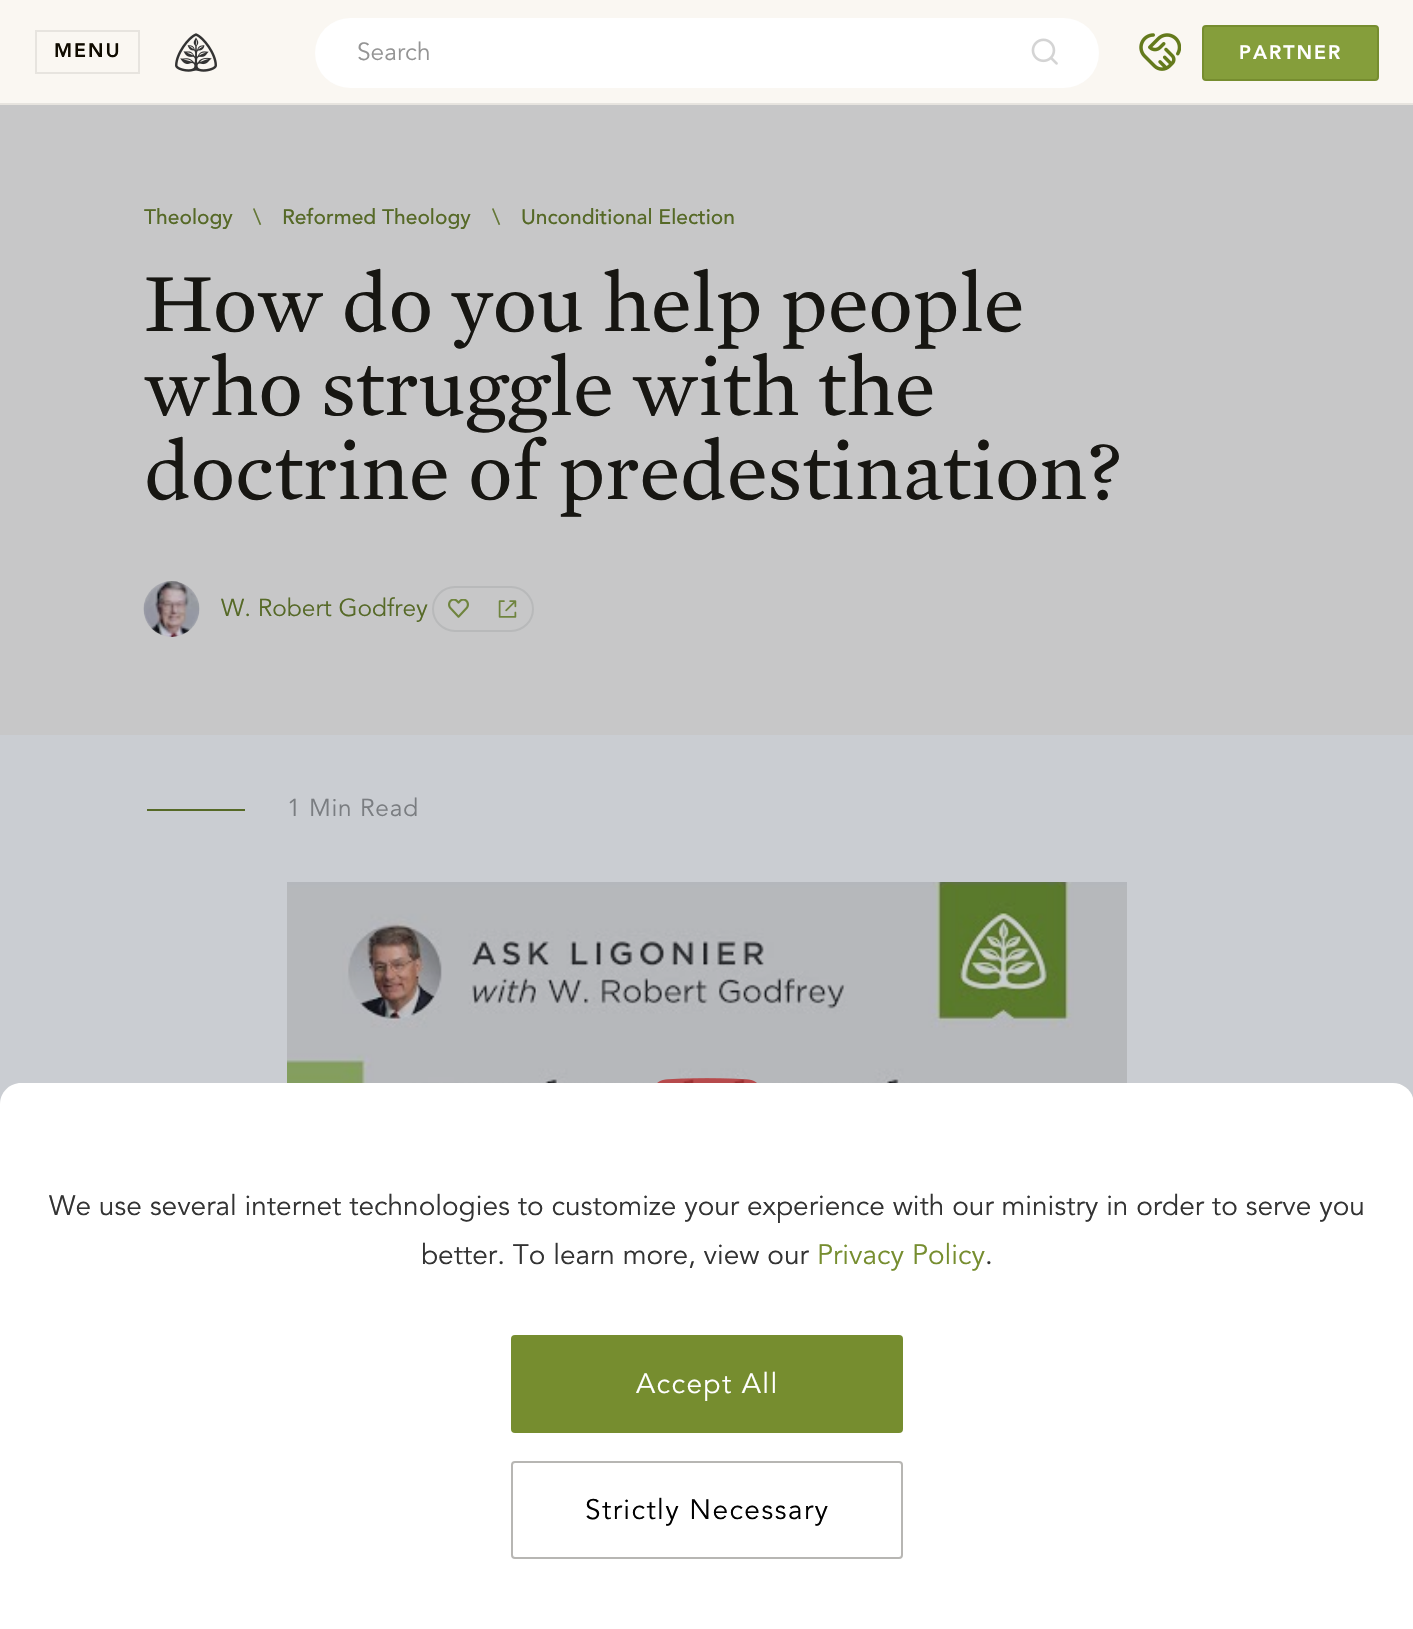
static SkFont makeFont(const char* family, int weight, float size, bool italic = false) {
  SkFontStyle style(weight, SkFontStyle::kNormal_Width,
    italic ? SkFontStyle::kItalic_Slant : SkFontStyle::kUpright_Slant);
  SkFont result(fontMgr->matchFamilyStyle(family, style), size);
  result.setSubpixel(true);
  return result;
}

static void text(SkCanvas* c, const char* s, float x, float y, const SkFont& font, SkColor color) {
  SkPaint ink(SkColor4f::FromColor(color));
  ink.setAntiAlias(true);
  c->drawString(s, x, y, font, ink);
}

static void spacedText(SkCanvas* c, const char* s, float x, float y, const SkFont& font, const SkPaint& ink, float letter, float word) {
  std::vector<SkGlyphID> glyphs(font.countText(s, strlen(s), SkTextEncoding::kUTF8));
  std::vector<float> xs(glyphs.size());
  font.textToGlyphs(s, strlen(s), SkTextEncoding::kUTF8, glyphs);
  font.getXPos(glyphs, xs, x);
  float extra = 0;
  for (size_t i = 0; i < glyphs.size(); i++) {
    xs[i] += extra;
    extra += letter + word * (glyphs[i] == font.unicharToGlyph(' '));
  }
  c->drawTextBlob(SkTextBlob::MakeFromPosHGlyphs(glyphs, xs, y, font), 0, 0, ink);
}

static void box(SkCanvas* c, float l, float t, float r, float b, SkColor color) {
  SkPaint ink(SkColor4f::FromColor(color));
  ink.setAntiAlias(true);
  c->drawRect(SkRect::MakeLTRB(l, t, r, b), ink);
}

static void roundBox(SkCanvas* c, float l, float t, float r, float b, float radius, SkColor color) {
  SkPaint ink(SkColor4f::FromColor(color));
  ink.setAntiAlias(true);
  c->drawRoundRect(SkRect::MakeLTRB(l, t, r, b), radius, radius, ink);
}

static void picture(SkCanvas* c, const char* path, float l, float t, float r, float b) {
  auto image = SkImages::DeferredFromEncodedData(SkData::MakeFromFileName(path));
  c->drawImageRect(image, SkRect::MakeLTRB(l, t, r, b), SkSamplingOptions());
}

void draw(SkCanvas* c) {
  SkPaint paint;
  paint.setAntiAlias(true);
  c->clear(0xffcacdd2);
  box(c, 0, 0, 1413, 103, 0xfffaf7f2);
  box(c, 0, 103, 1413, 105, 0xffe7e4df);
  paint.setStyle(SkPaint::kStroke_Style);
  paint.setStrokeWidth(2);
  paint.setColor(0xffe7e4df);
  c->drawRect(SkRect::MakeLTRB(36, 31, 139, 73), paint);
  SkFont face1 = makeFont("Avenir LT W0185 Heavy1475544", 900, 19.5f);
  paint.setStyle(SkPaint::kFill_Style);
  paint.setColor(0xff100b00);
  spacedText(c, "MENU", 54, 57, face1, paint, 2, 0);
  picture(c, "img_01.png", 175, 33, 217, 72);
  roundBox(c, 315, 18, 1099, 88, 35, 0xffffffff);
  SkFont face2 = makeFont("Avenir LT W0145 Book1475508", 400, 24.5f);
  text(c, "Search", 357, 60, face2, 0xff949494);
  picture(c, "img_02.png", 1031, 38, 1058, 65);
  picture(c, "img_03.png", 1139, 33, 1181, 71);
  paint.setColor(0xff859e3b);
  c->drawRoundRect(SkRect::MakeLTRB(1203, 26, 1378, 80), 3, 3, paint);
  paint.setStyle(SkPaint::kStroke_Style);
  paint.setColor(0xff768d2f);
  c->drawRoundRect(SkRect::MakeLTRB(1203, 26, 1378, 80), 3, 3, paint);
  paint.setStyle(SkPaint::kFill_Style);
  paint.setColor(0xffffffff);
  spacedText(c, "PARTNER", 1239, 59, face1, paint, 2, 0);
  box(c, 0, 105, 1413, 735, 0xffc7c7c8);
  SkFont face3 = makeFont("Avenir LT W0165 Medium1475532", 500, 21);
  text(c, "Theology", 144, 224, face3, 0xff566927);
  text(c, "\\", 253, 224, face3, 0xff647736);
  text(c, "Reformed Theology", 282, 224, face3, 0xff566927);
  text(c, "\\", 492, 224, face3, 0xff647736);
  text(c, "Unconditional Election", 521, 224, face3, 0xff566927);
  SkFont face4 = makeFont("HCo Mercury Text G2", 400, 84);
  text(c, "How do you help people", 144, 331, face4, 0xff171612);
  text(c, "who struggle with the", 144, 415, face4, 0xff171612);
  text(c, "doctrine of predestination?", 144, 499, face4, 0xff171612);
  picture(c, "img_04.png", 143, 581, 200, 637);
  text(c, "W. Robert Godfrey", 221, 616, face2, 0xff566927);
  paint.setStyle(SkPaint::kStroke_Style);
  paint.setColor(0xffb8b9ba);
  c->drawRoundRect(SkRect::MakeLTRB(433, 587, 533, 631), 22, 22, paint);
  picture(c, "img_05.png", 448, 599, 469, 618);
  picture(c, "img_06.png", 498, 600, 517, 618);
  box(c, 147, 809, 245, 811, 0xff566927);
  paint.setStyle(SkPaint::kFill_Style);
  paint.setColor(0xff7a7d81);
  spacedText(c, "1 Min Read", 287, 816, face2, paint, 0.75f, 0);
  picture(c, "img_07.png", 287, 882, 1127, 1083);
  picture(c, "img_08.png", 657, 1078, 757, 1083);
  paint.setColor(0xffffffff);
  c->drawPath(SkPathBuilder().moveTo(21, 1083).lineTo(1393, 1083).cubicTo(1404.5f, 1083, 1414, 1092.5f, 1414, 1104).lineTo(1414, 1629).lineTo(0, 1629).lineTo(0, 1104).cubicTo(0, 1092.5f, 9.5f, 1083, 21, 1083).close().detach(), paint);
  SkFont face5 = makeFont("Avenir LT W0145 Book1475508", 400, 28);
  text(c, "We use several internet technologies to customize your experience with our ministry in order to serve you", 49, 1215, face5, 0xff333333);
  text(c, "better. To learn more, view our", 421, 1264, face5, 0xff333333);
  text(c, "Privacy Policy", 817, 1264, face5, 0xff768d2f);
  text(c, ".", 985, 1264, face5, 0xff333333);
  roundBox(c, 511, 1335, 903, 1433, 4, 0xff768d2f);
  spacedText(c, "Accept All", 636, 1393, face5, paint, 1.4f, 0);
  paint.setStyle(SkPaint::kStroke_Style);
  paint.setColor(0xffb7b6b3);
  c->drawRoundRect(SkRect::MakeLTRB(512, 1462, 902, 1558), 3, 3, paint);
  paint.setStyle(SkPaint::kFill_Style);
  paint.setColor(0xff000000);
  spacedText(c, "Strictly Necessary", 585, 1519, face5, paint, 1.4f, 0);
}
